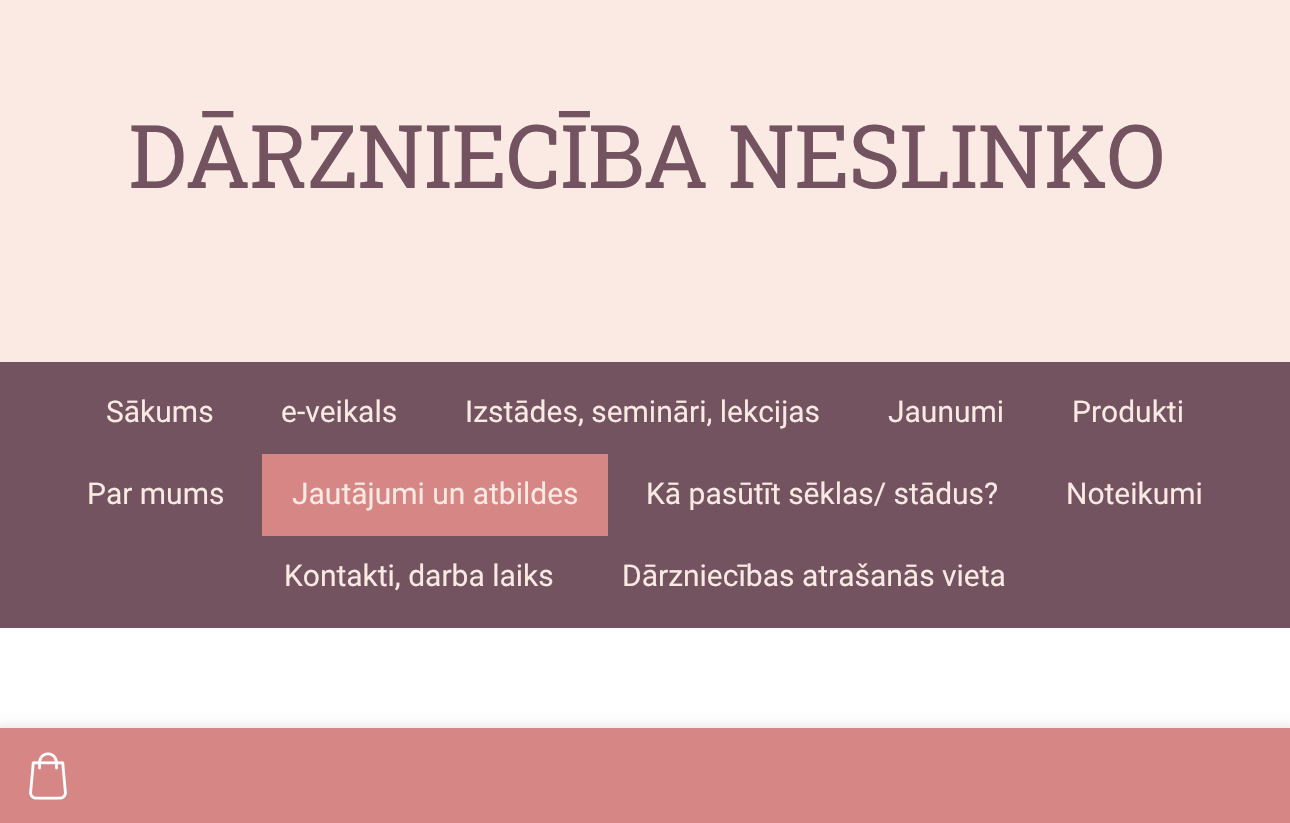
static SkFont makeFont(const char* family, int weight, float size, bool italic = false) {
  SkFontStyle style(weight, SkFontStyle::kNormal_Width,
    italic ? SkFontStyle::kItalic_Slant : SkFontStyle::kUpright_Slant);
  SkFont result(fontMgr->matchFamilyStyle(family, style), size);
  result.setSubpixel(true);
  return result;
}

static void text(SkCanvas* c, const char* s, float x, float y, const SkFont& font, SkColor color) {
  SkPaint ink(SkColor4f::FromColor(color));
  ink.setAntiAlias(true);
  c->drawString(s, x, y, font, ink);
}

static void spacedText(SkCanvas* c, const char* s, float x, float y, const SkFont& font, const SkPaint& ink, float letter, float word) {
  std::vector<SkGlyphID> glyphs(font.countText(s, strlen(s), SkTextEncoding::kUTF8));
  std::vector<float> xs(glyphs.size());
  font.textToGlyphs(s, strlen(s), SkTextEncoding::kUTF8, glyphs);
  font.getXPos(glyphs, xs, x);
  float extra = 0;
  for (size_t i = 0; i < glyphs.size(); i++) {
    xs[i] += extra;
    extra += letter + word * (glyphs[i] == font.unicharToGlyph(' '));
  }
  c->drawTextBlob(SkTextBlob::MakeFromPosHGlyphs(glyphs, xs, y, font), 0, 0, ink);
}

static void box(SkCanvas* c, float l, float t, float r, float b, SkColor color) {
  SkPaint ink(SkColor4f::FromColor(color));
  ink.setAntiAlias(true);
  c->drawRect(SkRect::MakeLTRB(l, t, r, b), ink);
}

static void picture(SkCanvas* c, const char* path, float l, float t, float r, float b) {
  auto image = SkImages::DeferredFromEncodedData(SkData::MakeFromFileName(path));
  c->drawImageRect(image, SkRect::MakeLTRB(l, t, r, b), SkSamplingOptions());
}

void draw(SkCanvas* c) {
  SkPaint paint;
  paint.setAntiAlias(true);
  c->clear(0xffffffff);
  box(c, 0, 0, 1290, 362, 0xfffaeae3);
  SkFont face1 = makeFont("Roboto Slab", 400, 88);
  paint.setColor(0xff735360);
  spacedText(c, "DĀRZNIECĪBA NESLINKO", 128, 188, face1, paint, -1.6f, 0);
  box(c, 0, 362, 1290, 628, 0xff735360);
  SkFont face2 = makeFont("Roboto", 400, 30);
  text(c, "Sākums", 106, 422, face2, 0xfffaeae3);
  text(c, "e-veikals", 281, 422, face2, 0xfffaeae3);
  text(c, "Izstādes, semināri, lekcijas", 465, 422, face2, 0xfffaeae3);
  text(c, "Jaunumi", 888, 422, face2, 0xfffaeae3);
  text(c, "Produkti", 1072, 422, face2, 0xfffaeae3);
  text(c, "Par mums", 87, 504, face2, 0xfffaeae3);
  box(c, 262, 454, 608, 536, 0xffd68684);
  text(c, "Jautājumi un atbildes", 292, 504, face2, 0xfffaeae3);
  text(c, "Kā pasūtīt sēklas/ stādus?", 646, 504, face2, 0xfffaeae3);
  text(c, "Noteikumi", 1066, 504, face2, 0xfffaeae3);
  text(c, "Kontakti, darba laiks", 284, 586, face2, 0xfffaeae3);
  text(c, "Dārzniecības atrašanās vieta", 622, 586, face2, 0xfffaeae3);
  paint.setColor(0x1a000000);
  paint.setMaskFilter(SkMaskFilter::MakeBlur(kNormal_SkBlurStyle, 5));
  c->drawRect(SkRect::MakeLTRB(-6, 726, 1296, 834), paint);
  paint.setMaskFilter(nullptr);
  box(c, 0, 728, 1290, 823, 0xffd68684);
  picture(c, "img_01.png", 29, 752, 67, 800);
}
